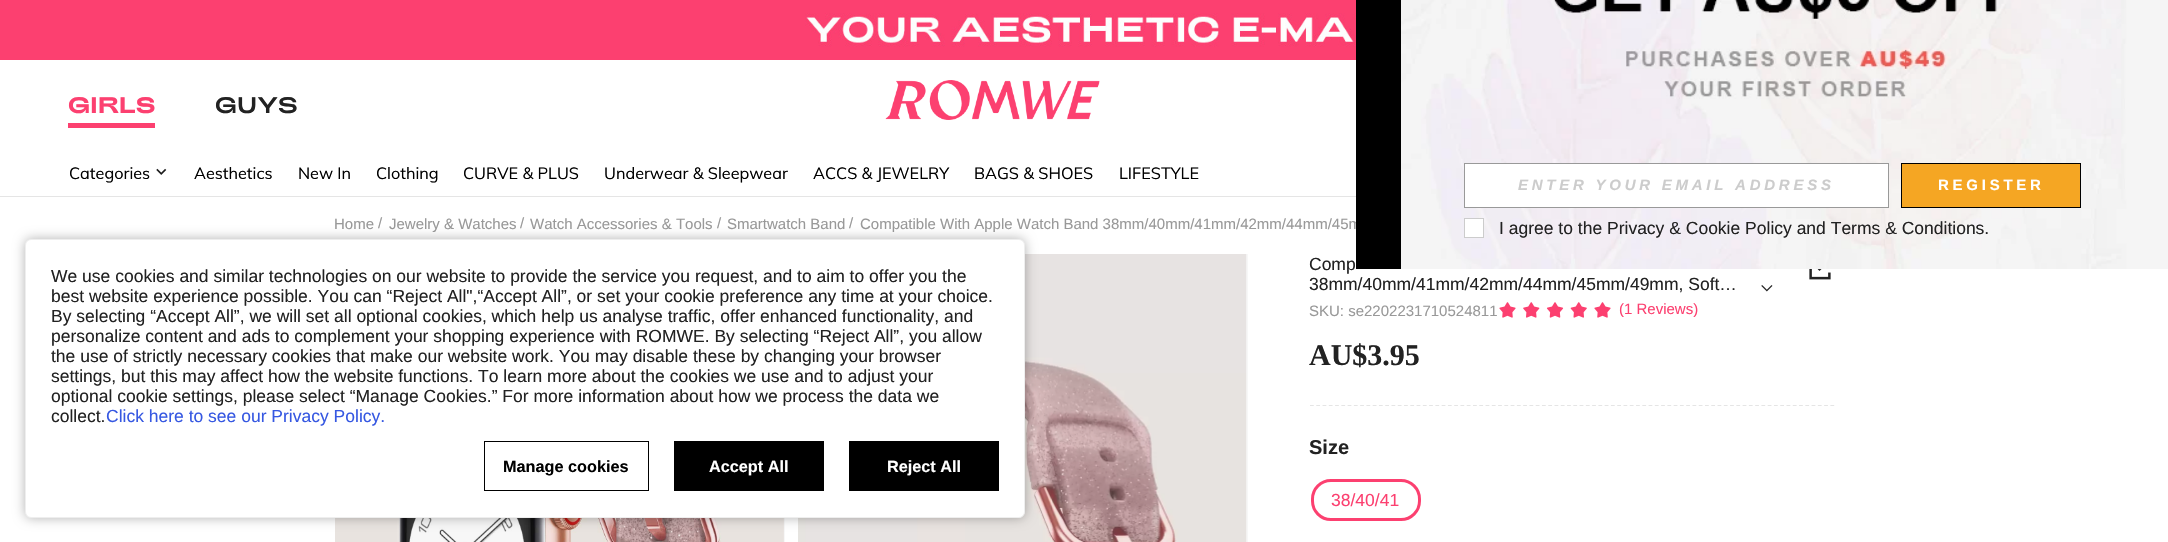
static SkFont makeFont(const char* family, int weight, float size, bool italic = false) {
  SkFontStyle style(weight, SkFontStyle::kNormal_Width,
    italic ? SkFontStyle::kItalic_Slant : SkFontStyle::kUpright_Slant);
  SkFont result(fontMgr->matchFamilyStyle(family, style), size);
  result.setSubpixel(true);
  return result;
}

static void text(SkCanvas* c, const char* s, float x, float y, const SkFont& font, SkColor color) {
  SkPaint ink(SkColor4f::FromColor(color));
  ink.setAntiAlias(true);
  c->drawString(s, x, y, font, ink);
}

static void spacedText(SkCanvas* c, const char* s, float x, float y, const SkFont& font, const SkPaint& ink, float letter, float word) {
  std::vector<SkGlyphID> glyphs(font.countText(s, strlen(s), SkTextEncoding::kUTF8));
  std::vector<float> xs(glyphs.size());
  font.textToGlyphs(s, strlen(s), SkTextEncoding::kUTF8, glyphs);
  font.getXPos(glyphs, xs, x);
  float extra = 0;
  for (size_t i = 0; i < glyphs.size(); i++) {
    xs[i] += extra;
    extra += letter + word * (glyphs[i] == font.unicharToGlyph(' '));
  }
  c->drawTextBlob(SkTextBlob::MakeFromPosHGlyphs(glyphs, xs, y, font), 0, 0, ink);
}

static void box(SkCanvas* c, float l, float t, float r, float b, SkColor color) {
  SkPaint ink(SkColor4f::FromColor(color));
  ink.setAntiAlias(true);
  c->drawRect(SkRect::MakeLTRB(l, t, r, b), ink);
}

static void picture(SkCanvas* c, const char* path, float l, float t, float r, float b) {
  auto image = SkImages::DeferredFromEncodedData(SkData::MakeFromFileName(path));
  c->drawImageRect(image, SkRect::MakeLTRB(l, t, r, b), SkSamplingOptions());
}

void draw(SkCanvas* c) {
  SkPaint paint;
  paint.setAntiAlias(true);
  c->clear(0xffffffff);
  box(c, 1246, 254, 1248, 542, 0xfff7f7f7);
  box(c, 783, 518, 785, 542, 0xfff7f7f7);
  picture(c, "img_01.png", 0, 0, 1356, 60);
  SkFont face1 = makeFont("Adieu", 700, 22.5f);
  text(c, "GIRLS", 68, 113, face1, 0xfffc4070);
  box(c, 68, 123, 155, 128, 0xfffc4070);
  SkFont face2 = makeFont("Adieu", 400, 22.5f);
  text(c, "GUYS", 215, 113, face2, 0xff222222);
  picture(c, "img_02.png", 885, 80, 1100, 120);
  box(c, 0, 196, 1356, 197, 0xffe5e5e5);
  SkFont face3 = makeFont("Muli", 400, 16.25f);
  text(c, "Categories", 69, 179, face3, 0xff000000);
  picture(c, "img_03.png", 156, 168, 167, 175);
  text(c, "Aesthetics", 194, 179, face3, 0xff000000);
  text(c, "New In", 298, 179, face3, 0xff000000);
  text(c, "Clothing", 376, 179, face3, 0xff000000);
  text(c, "CURVE & PLUS", 463, 179, face3, 0xff000000);
  text(c, "Underwear & Sleepwear", 604, 179, face3, 0xff000000);
  text(c, "ACCS & JEWELRY", 813, 179, face3, 0xff000000);
  text(c, "BAGS & SHOES", 974, 179, face3, 0xff000000);
  text(c, "LIFESTYLE", 1119, 179, face3, 0xff000000);
  SkFont face4 = makeFont("Liberation Sans", 400, 15);
  text(c, "Home", 334, 229, face4, 0xff999999);
  text(c, "/", 378, 228, face4, 0xff999999);
  text(c, "Jewelry & Watches", 389, 229, face4, 0xff999999);
  text(c, "/", 520, 228, face4, 0xff999999);
  text(c, "Watch Accessories & Tools", 530, 229, face4, 0xff999999);
  text(c, "/", 717, 228, face4, 0xff999999);
  text(c, "Smartwatch Band", 727, 229, face4, 0xff999999);
  text(c, "/", 849, 228, face4, 0xff999999);
  text(c, "Compatible With Apple Watch Band 38mm/40mm/41mm/42mm/44mm/45m", 860, 229, face4, 0xff999999);
  picture(c, "img_04.png", 335, 518, 784, 542);
  picture(c, "img_05.png", 798, 254, 1247, 542);
  SkFont face5 = makeFont("Liberation Sans", 400, 17.5f);
  text(c, "Comp", 1309, 270, face5, 0xff222222);
  c->save();
  c->clipRect(SkRect::MakeLTRB(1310, 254, 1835, 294));
  c->clipPath(SkPathBuilder(SkPathFillType::kEvenOdd).moveTo(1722, 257).lineTo(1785, 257).lineTo(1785, 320).lineTo(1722, 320).close().moveTo(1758, 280).lineTo(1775, 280).lineTo(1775, 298).lineTo(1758, 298).close().detach(), true);
  paint.setColor(0xffffffff);
  paint.setMaskFilter(SkMaskFilter::MakeBlur(kNormal_SkBlurStyle, 6));
  c->drawRect(SkRect::MakeLTRB(1741, 276, 1766, 301), paint);
  paint.setMaskFilter(nullptr);
  c->restore();
  picture(c, "img_06.png", 1761, 285, 1773, 292);
  text(c, "38mm/40mm/41mm/42mm/44mm/45mm/49mm, Soft…", 1309, 290, face5, 0xff222222);
  picture(c, "img_07.png", 1809, 269, 1831, 280);
  text(c, "SKU: se2202231710524811", 1309, 316, face4, 0xff999999);
  picture(c, "img_08.png", 1499, 302, 1516, 318);
  picture(c, "img_09.png", 1523, 302, 1540, 318);
  picture(c, "img_10.png", 1546, 302, 1564, 318);
  picture(c, "img_11.png", 1570, 302, 1587, 318);
  picture(c, "img_08.png", 1594, 302, 1611, 318);
  text(c, "(1 Reviews)", 1619, 314, face4, 0xfffc4070);
  SkFont face6 = makeFont("Liberation Serif", 700, 30);
  text(c, "AU$3.95", 1309, 365, face6, 0xff222222);
  paint.setStyle(SkPaint::kStroke_Style);
  paint.setStrokeWidth(1.2f);
  paint.setColor(0xffe5e5e5);
  paint.setPathEffect(SkDashPathEffect::Make({{3.75f, 2.52f}}, 0));
  c->drawPath(SkPathBuilder().moveTo(1310, 405.5f).lineTo(1835, 405.5f).detach(), paint);
  paint.setPathEffect(nullptr);
  SkFont face7 = makeFont("Liberation Sans", 700, 20);
  text(c, "Size", 1309, 454, face7, 0xff222222);
  paint.setStrokeWidth(3);
  paint.setColor(0xfffc4070);
  c->drawRoundRect(SkRect::MakeLTRB(1312.5f, 480.5f, 1419.5f, 519.5f), 18.5f, 18.5f, paint);
  text(c, "38/40/41", 1331, 506, face5, 0xfffc4070);
  box(c, 1356, 0, 1401, 269, 0xff000000);
  picture(c, "img_12.png", 1401, 0, 2168, 269);
  paint.setStyle(SkPaint::kFill_Style);
  paint.setColor(0xffffffff);
  c->drawRect(SkRect::MakeLTRB(1464.5f, 163.5f, 1888.5f, 207.5f), paint);
  paint.setStyle(SkPaint::kStroke_Style);
  paint.setStrokeWidth(1);
  paint.setColor(0xff999999);
  c->drawRect(SkRect::MakeLTRB(1464.5f, 163.5f, 1888.5f, 207.5f), paint);
  SkFont face8 = makeFont("Liberation Sans", 700, 15, true);
  paint.setStyle(SkPaint::kFill_Style);
  paint.setColor(0xffcccccc);
  spacedText(c, "ENTER YOUR EMAIL ADDRESS", 1518, 190, face8, paint, 3.75f, 0);
  paint.setColor(0xfff5a623);
  c->drawRect(SkRect::MakeLTRB(1901.5f, 163.5f, 2080.5f, 207.5f), paint);
  paint.setStyle(SkPaint::kStroke_Style);
  paint.setColor(0xff000000);
  c->drawRect(SkRect::MakeLTRB(1901.5f, 163.5f, 2080.5f, 207.5f), paint);
  SkFont face9 = makeFont("Liberation Sans", 700, 15);
  paint.setStyle(SkPaint::kFill_Style);
  paint.setColor(0xffffffff);
  spacedText(c, "REGISTER", 1938, 190, face9, paint, 3.75f, 0);
  c->drawRect(SkRect::MakeLTRB(1464.5f, 218.5f, 1483.5f, 237.5f), paint);
  paint.setStyle(SkPaint::kStroke_Style);
  paint.setColor(0xffcccccc);
  c->drawRect(SkRect::MakeLTRB(1464.5f, 218.5f, 1483.5f, 237.5f), paint);
  text(c, "I agree to the Privacy & Cookie Policy and Terms & Conditions.", 1499, 234, face5, 0xff222222);
  paint.setStyle(SkPaint::kFill_Style);
  paint.setColor(0x4d000000);
  paint.setMaskFilter(SkMaskFilter::MakeBlur(kNormal_SkBlurStyle, 6));
  c->drawRoundRect(SkRect::MakeLTRB(25, 239, 1025, 518), 6, 6, paint);
  paint.setMaskFilter(nullptr);
  paint.setColor(0xffffffff);
  c->drawRoundRect(SkRect::MakeLTRB(25.5f, 239.5f, 1024.5f, 517.5f), 5.5f, 5.5f, paint);
  paint.setStyle(SkPaint::kStroke_Style);
  paint.setColor(0xffeeeeee);
  c->drawRoundRect(SkRect::MakeLTRB(25.5f, 239.5f, 1024.5f, 517.5f), 5.5f, 5.5f, paint);
  text(c, "We use cookies and similar technologies on our website to provide the service you request, and to aim to offer you the", 51, 282, face5, 0xff222222);
  text(c, "best website experience possible. You can “Reject All\",“Accept All”, or set your cookie preference any time at your choice.", 51, 302, face5, 0xff222222);
  text(c, "By selecting “Accept All”, we will set all optional cookies, which help us analyse traffic, offer enhanced functionality, and", 51, 322, face5, 0xff222222);
  text(c, "personalize content and ads to complement your shopping experience with ROMWE. By selecting “Reject All”, you allow", 51, 342, face5, 0xff222222);
  text(c, "the use of strictly necessary cookies that make our website work. You may disable these by changing your browser", 51, 362, face5, 0xff222222);
  text(c, "settings, but this may affect how the website functions. To learn more about the cookies we use and to adjust your", 51, 382, face5, 0xff222222);
  text(c, "optional cookie settings, please select “Manage Cookies.” For more information about how we process the data we", 51, 402, face5, 0xff222222);
  text(c, "collect.", 51, 422, face5, 0xff222222);
  text(c, "Click here to see our Privacy Policy.", 106, 422, face5, 0xff3658e2);
  paint.setColor(0xff000000);
  c->drawRect(SkRect::MakeLTRB(484.5f, 441.5f, 648.5f, 490.5f), paint);
  SkFont face10 = makeFont("Liberation Sans", 700, 16.25f);
  text(c, "Manage cookies", 503, 472, face10, 0xff000000);
  box(c, 674, 441, 824, 491, 0xff000000);
  text(c, "Accept All", 709, 472, face10, 0xffffffff);
  box(c, 849, 441, 999, 491, 0xff000000);
  text(c, "Reject All", 887, 472, face10, 0xffffffff);
}
